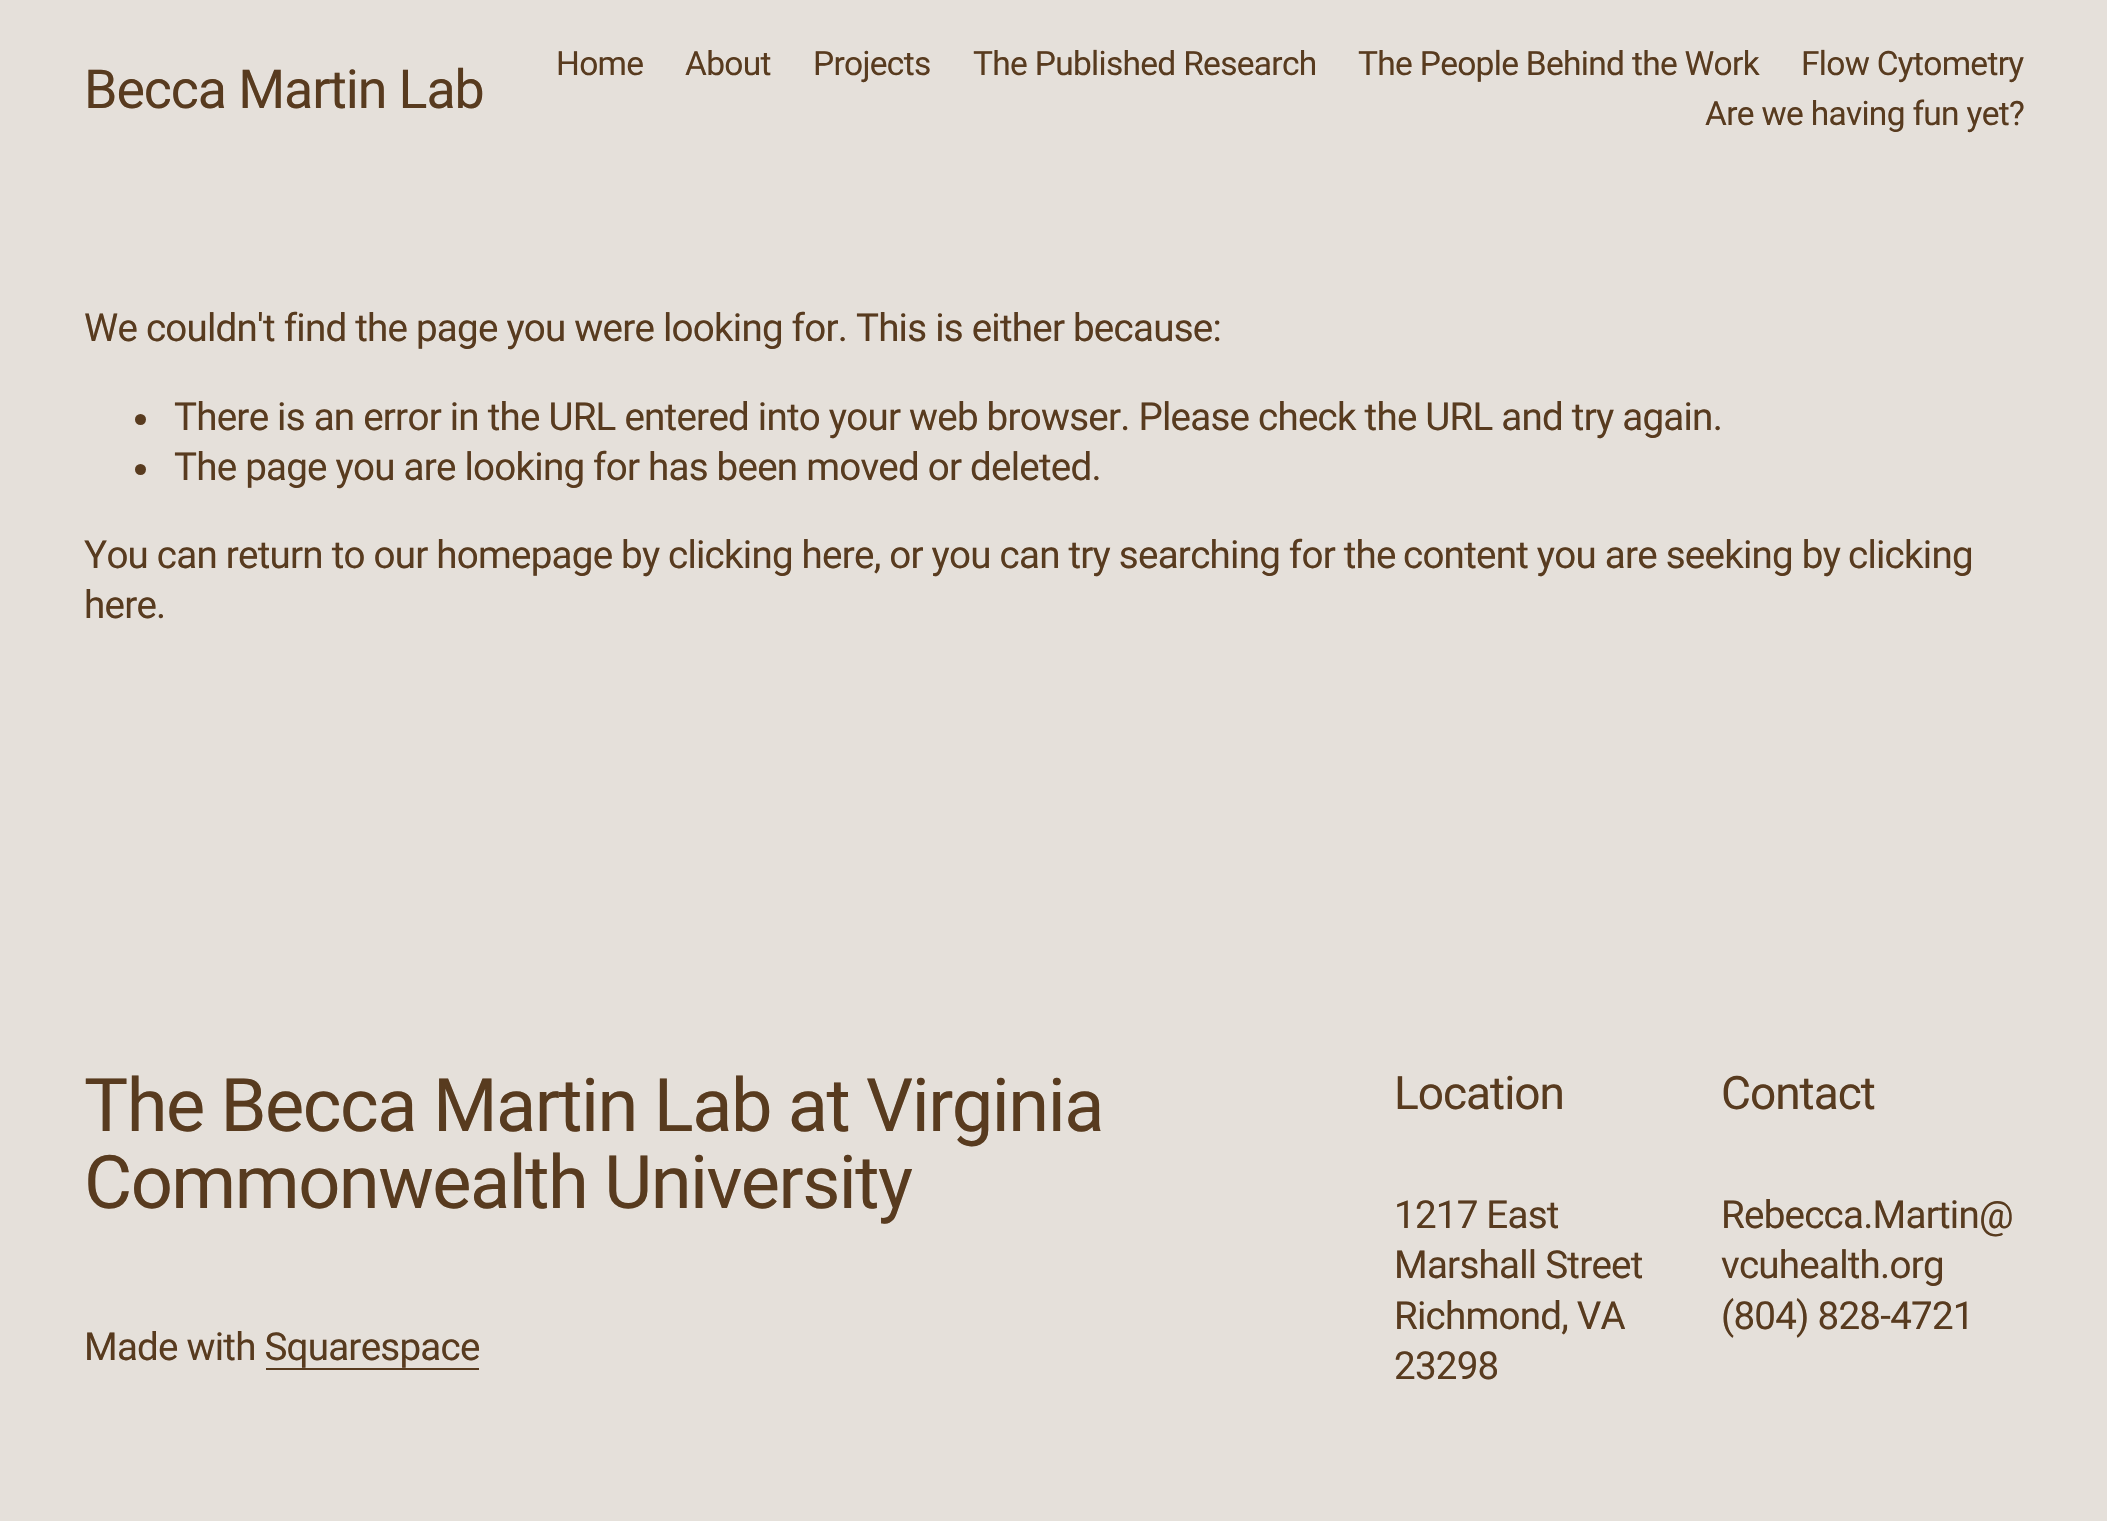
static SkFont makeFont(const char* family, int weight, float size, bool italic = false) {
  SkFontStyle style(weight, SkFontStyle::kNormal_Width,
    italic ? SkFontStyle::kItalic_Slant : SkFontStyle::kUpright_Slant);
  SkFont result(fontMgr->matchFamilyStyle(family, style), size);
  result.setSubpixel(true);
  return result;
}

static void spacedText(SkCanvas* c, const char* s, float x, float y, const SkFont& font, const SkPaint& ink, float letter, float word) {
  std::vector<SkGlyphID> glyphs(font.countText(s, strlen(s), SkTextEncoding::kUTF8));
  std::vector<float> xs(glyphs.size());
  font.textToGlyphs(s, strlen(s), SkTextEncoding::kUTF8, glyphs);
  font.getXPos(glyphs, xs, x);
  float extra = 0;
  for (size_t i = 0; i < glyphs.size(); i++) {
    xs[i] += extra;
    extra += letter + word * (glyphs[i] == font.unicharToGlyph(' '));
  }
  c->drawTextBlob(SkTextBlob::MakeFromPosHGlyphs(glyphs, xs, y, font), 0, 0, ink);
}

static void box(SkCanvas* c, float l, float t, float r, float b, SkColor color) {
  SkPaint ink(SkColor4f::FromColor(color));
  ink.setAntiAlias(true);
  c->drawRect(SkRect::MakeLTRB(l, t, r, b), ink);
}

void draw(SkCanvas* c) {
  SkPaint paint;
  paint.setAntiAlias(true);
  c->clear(0xffe5e0da);
  SkFont face1 = makeFont("Roboto", 400, 53.75f);
  paint.setColor(0xff583b1f);
  spacedText(c, "Becca Martin Lab", 84, 108, face1, paint, -1.1f, 0);
  SkFont face2 = makeFont("Roboto", 400, 33.5f);
  spacedText(c, "Home", 556, 75, face2, paint, -0.7f, 0);
  spacedText(c, "About", 685, 75, face2, paint, -0.7f, 0);
  spacedText(c, "Projects", 813, 75, face2, paint, -0.7f, 0);
  spacedText(c, "The Published Research", 973, 75, face2, paint, -0.7f, 0);
  spacedText(c, "The People Behind the Work", 1358, 75, face2, paint, -0.7f, 0);
  spacedText(c, "Flow Cytometry", 1801, 75, face2, paint, -0.7f, 0);
  spacedText(c, "Are we having fun yet?", 1705, 125, face2, paint, -0.7f, 0);
  SkFont face3 = makeFont("Roboto", 400, 38.55f);
  spacedText(c, "We couldn't find the page you were looking for. This is either because:", 84, 341, face3, paint, -0.77f, 0);
  c->drawCircle(140.5f, 419.5f, 5.5f, paint);
  spacedText(c, "There is an error in the URL entered into your web browser. Please check the URL and try again.", 174, 430, face3, paint, -0.77f, 0);
  c->drawCircle(140.5f, 469.5f, 5.5f, paint);
  spacedText(c, "The page you are looking for has been moved or deleted.", 174, 480, face3, paint, -0.77f, 0);
  spacedText(c, "You can return to our homepage by", 84, 568, face3, paint, -0.77f, 0);
  spacedText(c, "clicking here, or you can try searching for the", 668, 568, face3, paint, -0.77f, 0);
  spacedText(c, "content you are seeking by", 1403, 568, face3, paint, -0.77f, 0);
  spacedText(c, "clicking", 1848, 568, face3, paint, -0.77f, 0);
  spacedText(c, "here.", 84, 618, face3, paint, -0.77f, 0);
  SkFont face4 = makeFont("Roboto", 400, 74);
  spacedText(c, "The Becca Martin Lab at Virginia", 84, 1131, face4, paint, -1.5f, 0);
  spacedText(c, "Commonwealth University", 84, 1208, face4, paint, -1.5f, 0);
  SkFont face5 = makeFont("Roboto", 400, 46);
  spacedText(c, "Location", 1394, 1109, face5, paint, -1, 0);
  spacedText(c, "1217 East", 1394, 1228, face3, paint, -0.77f, 0);
  spacedText(c, "Marshall Street", 1394, 1278, face3, paint, -0.77f, 0);
  spacedText(c, "Richmond, VA", 1394, 1329, face3, paint, -0.77f, 0);
  spacedText(c, "23298", 1394, 1379, face3, paint, -0.77f, 0);
  spacedText(c, "Contact", 1721, 1109, face5, paint, -1, 0);
  spacedText(c, "Rebecca.Martin@", 1721, 1228, face3, paint, -0.77f, 0);
  spacedText(c, "vcuhealth.org", 1721, 1278, face3, paint, -0.77f, 0);
  spacedText(c, "(804) 828-4721", 1721, 1329, face3, paint, -0.77f, 0);
  spacedText(c, "Made with Squarespace", 84, 1360, face3, paint, -0.77f, 0);
  box(c, 266, 1368, 479, 1370, 0xff583b1f);
}
